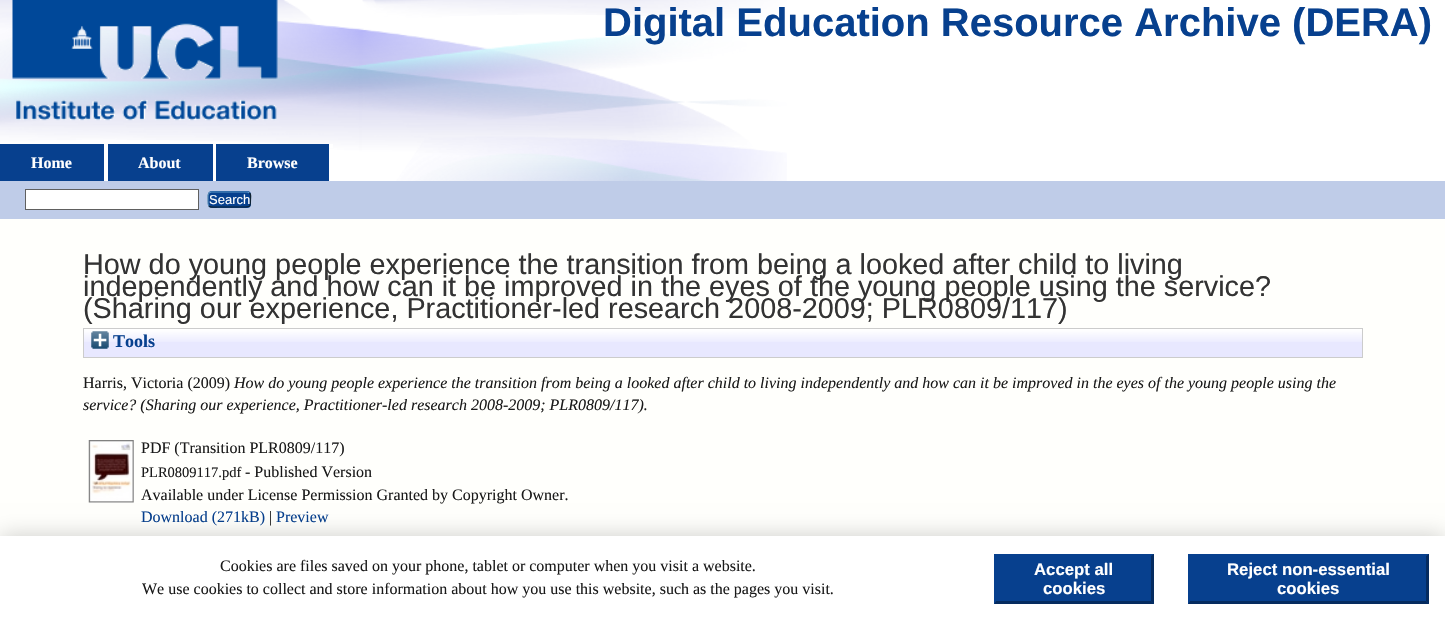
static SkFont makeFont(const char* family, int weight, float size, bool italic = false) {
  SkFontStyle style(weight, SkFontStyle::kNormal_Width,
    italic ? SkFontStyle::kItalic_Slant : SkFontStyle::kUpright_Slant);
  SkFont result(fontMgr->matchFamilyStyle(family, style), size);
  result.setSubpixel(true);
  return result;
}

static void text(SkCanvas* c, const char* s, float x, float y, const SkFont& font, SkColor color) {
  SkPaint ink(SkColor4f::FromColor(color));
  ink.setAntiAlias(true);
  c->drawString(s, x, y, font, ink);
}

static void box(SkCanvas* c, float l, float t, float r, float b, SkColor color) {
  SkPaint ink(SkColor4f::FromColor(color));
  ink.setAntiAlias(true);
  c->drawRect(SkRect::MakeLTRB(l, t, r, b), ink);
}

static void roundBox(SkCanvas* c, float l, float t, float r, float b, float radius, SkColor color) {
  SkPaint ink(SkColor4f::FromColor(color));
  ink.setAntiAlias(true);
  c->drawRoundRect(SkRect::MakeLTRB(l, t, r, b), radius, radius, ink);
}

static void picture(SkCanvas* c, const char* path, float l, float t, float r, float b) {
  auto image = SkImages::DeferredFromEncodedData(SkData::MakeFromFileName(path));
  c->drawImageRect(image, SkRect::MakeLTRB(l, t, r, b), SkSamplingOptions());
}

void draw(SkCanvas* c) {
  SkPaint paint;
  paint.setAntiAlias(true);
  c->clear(0xfffffffc);
  box(c, 0, 0, 1445, 181, 0xffffffff);
  picture(c, "img_01.png", 0, 0, 787, 181);
  picture(c, "img_02.png", 12, 0, 278, 121);
  SkFont face1 = makeFont("Liberation Sans", 700, 40);
  text(c, "Digital Education Resource Archive (DERA)", 603, 36, face1, 0xff07408e);
  box(c, 0, 144, 104, 181, 0xff07408e);
  box(c, 104, 166, 108, 181, 0xffffffff);
  SkFont face2 = makeFont("Liberation Serif", 700, 16);
  text(c, "Home", 31, 168, face2, 0xffffffff);
  box(c, 108, 144, 213, 181, 0xff07408e);
  box(c, 213, 158, 216, 181, 0xffffffff);
  text(c, "About", 138, 168, face2, 0xffffffff);
  box(c, 216, 144, 329, 181, 0xff07408e);
  box(c, 329, 144, 333, 148, 0xffffffff);
  text(c, "Browse", 247, 168, face2, 0xffffffff);
  box(c, 0, 181, 1445, 219, 0xffbfcce8);
  paint.setColor(0xffffffff);
  c->drawRect(SkRect::MakeLTRB(25.5f, 189.5f, 198.5f, 209.5f), paint);
  paint.setStyle(SkPaint::kStroke_Style);
  paint.setStrokeWidth(1);
  paint.setColor(0xff606060);
  c->drawRect(SkRect::MakeLTRB(25.5f, 189.5f, 198.5f, 209.5f), paint);
  roundBox(c, 208, 191, 251, 208, 4, 0xff07408e);
  paint.setStrokeWidth(1.2f);
  paint.setColor(0xff5b97c7);
  c->drawPath(SkPathBuilder().moveTo(209, 193).lineTo(211, 192).lineTo(247.5f, 192).lineTo(249.5f, 193).detach(), paint);
  paint.setColor(0xff0d2131);
  c->drawPath(SkPathBuilder().moveTo(249.5f, 193).cubicTo(251.5f, 194.5f, 250.5f, 197.5f, 250.5f, 199.5f).cubicTo(250.5f, 207.5f, 250, 207, 241.5f, 207).lineTo(217.5f, 207).cubicTo(216, 207, 211, 208, 209, 206).detach(), paint);
  paint.setColor(0xff5287b3);
  c->drawPath(SkPathBuilder().moveTo(209, 206).cubicTo(207.5f, 204.5f, 208, 201.5f, 208, 199.5f).cubicTo(208, 197.5f, 207.5f, 194.5f, 209, 193).detach(), paint);
  SkFont face3 = makeFont("Liberation Sans", 400, 13);
  text(c, "Search", 209, 204, face3, 0xffffffff);
  SkFont face4 = makeFont("Liberation Sans", 400, 28.8f);
  text(c, "How do young people experience the transition from being a looked after child to living", 83, 274, face4, 0xff333333);
  text(c, "independently and how can it be improved in the eyes of the young people using the service?", 83, 296, face4, 0xff333333);
  text(c, "(Sharing our experience, Practitioner-led research 2008-2009; PLR0809/117)", 83, 318, face4, 0xff333333);
  box(c, 84, 329, 1362, 357, 0xffe8e8ff);
  picture(c, "img_03.png", 84, 329, 1362, 342);
  paint.setStrokeWidth(1);
  paint.setColor(0xffcccccc);
  c->drawRect(SkRect::MakeLTRB(83.5f, 328.5f, 1362.5f, 357.5f), paint);
  picture(c, "img_04.png", 91, 331, 109, 349);
  SkFont face5 = makeFont("Liberation Serif", 700, 18);
  text(c, "Tools", 113, 347, face5, 0xff07408e);
  SkFont face6 = makeFont("Liberation Serif", 400, 16);
  text(c, "Harris, Victoria (2009)", 83, 388, face6, 0xff1a1a1a);
  SkFont face7 = makeFont("Liberation Serif", 400, 16, true);
  text(c, "How do young people experience the transition from being a looked after child to living independently and how can it be improved in the eyes of the young people using the", 234, 388, face7, 0xff1a1a1a);
  text(c, "service? (Sharing our experience, Practitioner-led research 2008-2009; PLR0809/117).", 83, 410, face7, 0xff1a1a1a);
  picture(c, "img_05.png", 88, 440, 134, 503);
  text(c, "PDF (Transition PLR0809/117)", 141, 453, face6, 0xff1a1a1a);
  SkFont face8 = makeFont("Liberation Serif", 400, 14.5f);
  text(c, "PLR0809117.pdf", 141, 477, face8, 0xff1a1a1a);
  text(c, "- Published Version", 245, 477, face6, 0xff1a1a1a);
  text(c, "Available under License Permission Granted by Copyright Owner.", 141, 500, face6, 0xff1a1a1a);
  text(c, "Download (271kB)", 141, 522, face6, 0xff07408e);
  text(c, "|", 269, 522, face6, 0xff1a1a1a);
  text(c, "Preview", 276, 522, face6, 0xff07408e);
  paint.setStyle(SkPaint::kFill_Style);
  paint.setColor(0x33000000);
  paint.setMaskFilter(SkMaskFilter::MakeBlur(kNormal_SkBlurStyle, 11));
  c->drawRect(SkRect::MakeLTRB(0, 536, 1445, 621), paint);
  paint.setMaskFilter(nullptr);
  box(c, 0, 536, 1445, 621, 0xffffffff);
  text(c, "Cookies are files saved on your phone, tablet or computer when you visit a website.", 220, 571, face6, 0xff1a1a1a);
  text(c, "We use cookies to collect and store information about how you use this website, such as the pages you visit.", 142, 594, face6, 0xff1a1a1a);
  box(c, 994, 554, 1154, 604, 0xff07408e);
  paint.setColor(0xff052b5f);
  c->drawPath(SkPathBuilder().moveTo(1154, 554).lineTo(1154, 604).lineTo(1151, 601).lineTo(1151, 556).close().detach(), paint);
  c->drawPath(SkPathBuilder().moveTo(1154, 604).lineTo(994, 604).lineTo(996, 601).lineTo(1151, 601).close().detach(), paint);
  paint.setColor(0xff07408e);
  c->drawPath(SkPathBuilder().moveTo(994, 604).lineTo(994, 554).lineTo(996, 556).lineTo(996, 601).close().detach(), paint);
  SkFont face9 = makeFont("Liberation Sans", 700, 16.75f);
  text(c, "Accept all", 1034, 575, face9, 0xffffffff);
  text(c, "cookies", 1043, 594, face9, 0xffffffff);
  box(c, 1188, 554, 1429, 604, 0xff07408e);
  paint.setColor(0xff052b5f);
  c->drawPath(SkPathBuilder().moveTo(1429, 554).lineTo(1429, 604).lineTo(1426, 601).lineTo(1426, 556).close().detach(), paint);
  c->drawPath(SkPathBuilder().moveTo(1429, 604).lineTo(1188, 604).lineTo(1190, 601).lineTo(1426, 601).close().detach(), paint);
  paint.setColor(0xff07408e);
  c->drawPath(SkPathBuilder().moveTo(1188, 604).lineTo(1188, 554).lineTo(1190, 556).lineTo(1190, 601).close().detach(), paint);
  text(c, "Reject non-essential", 1227, 575, face9, 0xffffffff);
  text(c, "cookies", 1277, 594, face9, 0xffffffff);
}
